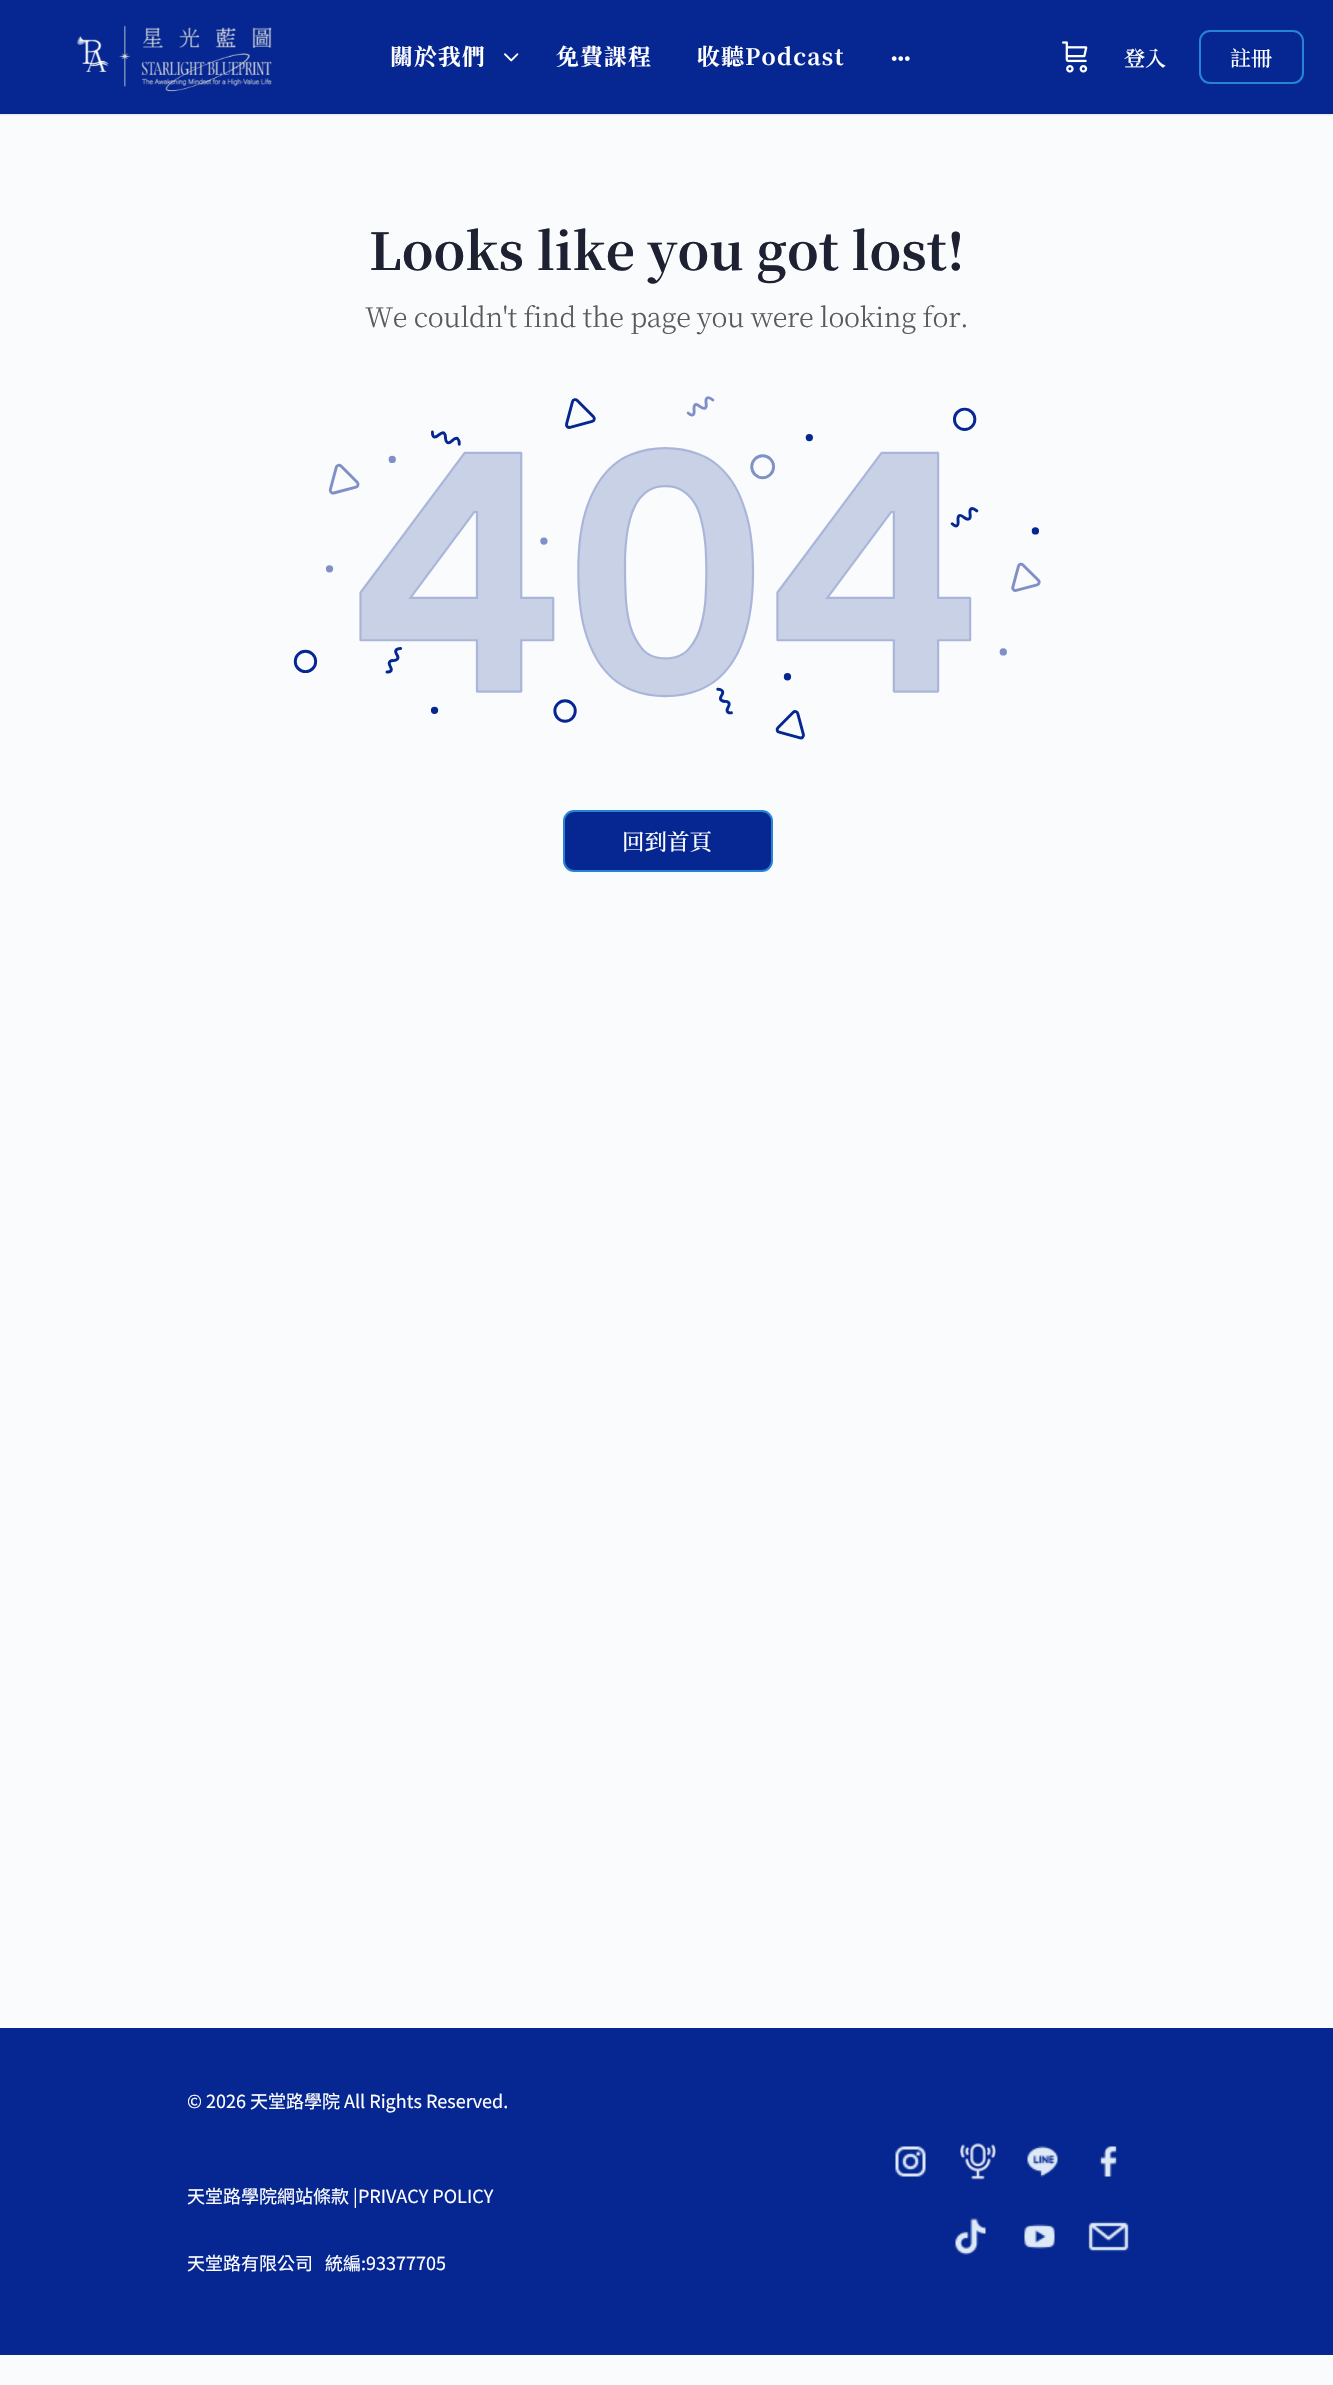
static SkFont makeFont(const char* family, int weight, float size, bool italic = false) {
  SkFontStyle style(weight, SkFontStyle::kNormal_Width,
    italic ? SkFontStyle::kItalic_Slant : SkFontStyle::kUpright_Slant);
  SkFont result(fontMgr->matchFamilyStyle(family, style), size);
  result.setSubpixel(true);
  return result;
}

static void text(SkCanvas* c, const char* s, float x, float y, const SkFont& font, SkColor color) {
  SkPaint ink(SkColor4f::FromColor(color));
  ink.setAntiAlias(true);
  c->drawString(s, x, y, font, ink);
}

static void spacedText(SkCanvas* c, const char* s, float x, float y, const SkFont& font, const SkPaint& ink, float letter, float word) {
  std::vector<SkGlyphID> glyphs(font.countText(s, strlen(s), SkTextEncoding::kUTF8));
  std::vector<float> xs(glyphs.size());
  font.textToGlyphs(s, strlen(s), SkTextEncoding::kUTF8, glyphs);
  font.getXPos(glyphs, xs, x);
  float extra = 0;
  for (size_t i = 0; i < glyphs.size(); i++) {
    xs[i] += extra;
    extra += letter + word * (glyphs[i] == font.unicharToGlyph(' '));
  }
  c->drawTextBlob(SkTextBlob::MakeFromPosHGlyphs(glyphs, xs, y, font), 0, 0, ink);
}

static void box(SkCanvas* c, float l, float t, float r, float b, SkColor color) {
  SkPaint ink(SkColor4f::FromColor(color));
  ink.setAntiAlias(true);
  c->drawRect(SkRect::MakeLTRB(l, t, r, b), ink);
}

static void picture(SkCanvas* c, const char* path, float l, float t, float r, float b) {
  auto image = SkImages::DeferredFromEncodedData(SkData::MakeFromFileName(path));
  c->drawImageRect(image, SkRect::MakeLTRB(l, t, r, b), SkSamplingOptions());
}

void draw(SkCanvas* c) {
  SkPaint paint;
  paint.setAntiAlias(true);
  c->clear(0xfffafbfd);
  paint.setColor(0x2641476c);
  paint.setMaskFilter(SkMaskFilter::MakeBlur(kNormal_SkBlurStyle, 1));
  c->drawRect(SkRect::MakeLTRB(0, 0, 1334, 114), paint);
  paint.setMaskFilter(nullptr);
  paint.setColor(0x0d8b8d9d);
  c->drawPath(SkPathBuilder().moveTo(0, 114).lineTo(0, 116).lineTo(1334, 116).lineTo(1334, 2).lineTo(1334, 114).close().detach(), paint);
  box(c, 0, 0, 1333, 114, 0xff062791);
  picture(c, "img_01.png", 76, 25, 272, 92);
  SkFont face1 = makeFont("Noto Serif TC", 700, 22.75f);
  paint.setColor(0xffffffff);
  spacedText(c, "關於我們", 390, 65, face1, paint, 1.25f, 0);
  picture(c, "img_02.png", 504, 53, 519, 62);
  spacedText(c, "免費課程", 556, 65, face1, paint, 1.25f, 0);
  spacedText(c, "收聽Podcast", 697, 65, face1, paint, 1.25f, 0);
  picture(c, "img_03.png", 891, 56, 910, 61);
  picture(c, "img_04.png", 1062, 41, 1088, 73);
  SkFont face2 = makeFont("Noto Serif TC", 600, 21);
  text(c, "登入", 1124, 66, face2, 0xffffffff);
  paint.setStyle(SkPaint::kStroke_Style);
  paint.setStrokeWidth(2);
  paint.setColor(0xff2685d3);
  c->drawRoundRect(SkRect::MakeLTRB(1200, 31, 1303, 83), 10, 10, paint);
  SkFont face3 = makeFont("Noto Serif TC", 500, 21);
  text(c, "註冊", 1230, 66, face3, 0xffffffff);
  SkFont face4 = makeFont("Noto Serif TC", 700, 51);
  text(c, "Looks like you got lost!", 369, 270, face4, 0xff1e2132);
  SkFont face5 = makeFont("Noto Serif TC", 300, 27);
  paint.setStyle(SkPaint::kFill_Style);
  paint.setColor(0xff5a5a5a);
  spacedText(c, "We couldn't find the page you were looking for.", 365, 327, face5, paint, -0.35f, 0);
  picture(c, "img_05.png", 293, 396, 1041, 740);
  paint.setColor(0xff062791);
  c->drawRoundRect(SkRect::MakeLTRB(564, 811, 772, 871), 10, 10, paint);
  paint.setStyle(SkPaint::kStroke_Style);
  paint.setColor(0xff2685d3);
  c->drawRoundRect(SkRect::MakeLTRB(564, 811, 772, 871), 10, 10, paint);
  SkFont face6 = makeFont("Noto Serif TC", 500, 22.5f);
  text(c, "回到首頁", 622, 850, face6, 0xffffffff);
  box(c, 0, 2028, 1333, 2355, 0xff062791);
  SkFont face7 = makeFont("Noto Sans TC", 400, 18);
  text(c, "© 2026 天堂路學院 All Rights Reserved.", 187, 2108, face7, 0xffffffff);
  text(c, "天堂路學院網站條款 |PRIVACY POLICY", 187, 2203, face7, 0xffffffff);
  text(c, "天堂路有限公司   統編:93377705", 187, 2270, face7, 0xffffffff);
  picture(c, "img_06.png", 895, 2146, 926, 2177);
  picture(c, "img_07.png", 960, 2143, 996, 2180);
  picture(c, "img_08.png", 1027, 2146, 1058, 2177);
  picture(c, "img_09.png", 1099, 2146, 1117, 2177);
  picture(c, "img_10.png", 955, 2218, 986, 2255);
  picture(c, "img_11.png", 1024, 2224, 1055, 2249);
  picture(c, "img_12.png", 1088, 2221, 1129, 2252);
}
